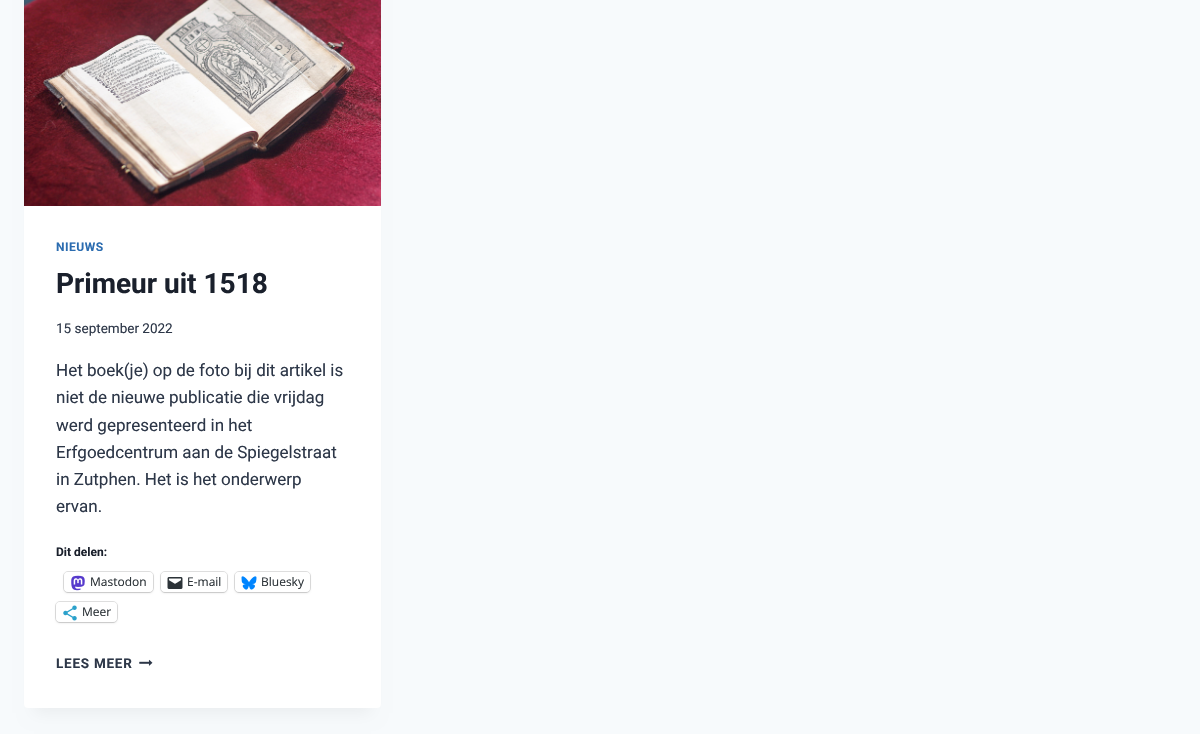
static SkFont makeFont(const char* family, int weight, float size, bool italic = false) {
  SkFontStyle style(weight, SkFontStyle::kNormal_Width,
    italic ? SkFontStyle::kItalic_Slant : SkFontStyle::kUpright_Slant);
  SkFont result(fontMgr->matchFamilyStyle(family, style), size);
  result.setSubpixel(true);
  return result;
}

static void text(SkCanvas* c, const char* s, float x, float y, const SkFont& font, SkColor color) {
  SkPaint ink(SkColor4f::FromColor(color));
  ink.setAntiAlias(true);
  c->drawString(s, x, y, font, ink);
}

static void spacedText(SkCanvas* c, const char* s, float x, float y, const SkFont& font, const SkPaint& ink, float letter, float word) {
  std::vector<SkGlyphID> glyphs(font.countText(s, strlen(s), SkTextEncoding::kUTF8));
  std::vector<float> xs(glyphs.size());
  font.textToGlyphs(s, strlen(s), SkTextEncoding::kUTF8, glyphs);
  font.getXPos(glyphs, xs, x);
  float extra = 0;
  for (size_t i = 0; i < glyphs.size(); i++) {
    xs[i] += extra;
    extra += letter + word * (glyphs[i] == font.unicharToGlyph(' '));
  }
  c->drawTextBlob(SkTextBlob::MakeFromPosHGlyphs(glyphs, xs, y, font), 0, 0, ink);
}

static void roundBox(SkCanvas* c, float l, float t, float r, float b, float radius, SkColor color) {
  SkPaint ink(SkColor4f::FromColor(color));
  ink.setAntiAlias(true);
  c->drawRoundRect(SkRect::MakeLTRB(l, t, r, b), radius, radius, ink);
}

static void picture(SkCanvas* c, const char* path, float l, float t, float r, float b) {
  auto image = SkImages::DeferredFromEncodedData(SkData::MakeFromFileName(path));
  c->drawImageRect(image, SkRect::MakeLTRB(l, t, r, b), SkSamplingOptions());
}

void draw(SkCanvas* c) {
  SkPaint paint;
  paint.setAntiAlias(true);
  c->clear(0xfff7fafc);
  paint.setColor(0x0d000000);
  paint.setMaskFilter(SkMaskFilter::MakeBlur(kNormal_SkBlurStyle, 7.5f));
  c->drawRect(SkRect::MakeLTRB(34, -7, 371, 713), paint);
  paint.setMaskFilter(nullptr);
  roundBox(c, 24, -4, 381, 708, 4, 0xffffffff);
  picture(c, "img_01.png", 24, 0, 381, 206);
  SkFont face1 = makeFont("Roboto", 700, 12);
  paint.setColor(0xff2b6cb0);
  spacedText(c, "NIEUWS", 56, 251, face1, paint, 0.5f, 0);
  SkFont face2 = makeFont("Roboto", 700, 28);
  text(c, "Primeur uit 1518", 56, 293, face2, 0xff1a202c);
  SkFont face3 = makeFont("Roboto", 400, 13.5f);
  text(c, "15 september 2022", 56, 333, face3, 0xff2d3748);
  SkFont face4 = makeFont("Roboto", 400, 17);
  text(c, "Het boek(je) op de foto bij dit artikel is", 56, 376, face4, 0xff2d3748);
  text(c, "niet de nieuwe publicatie die vrijdag", 56, 403, face4, 0xff2d3748);
  text(c, "werd gepresenteerd in het", 56, 431, face4, 0xff2d3748);
  text(c, "Erfgoedcentrum aan de Spiegelstraat", 56, 458, face4, 0xff2d3748);
  text(c, "in Zutphen. Het is het onderwerp", 56, 485, face4, 0xff2d3748);
  text(c, "ervan.", 56, 512, face4, 0xff2d3748);
  text(c, "Dit delen:", 56, 556, face1, 0xff1a202c);
  paint.setStyle(SkPaint::kStroke_Style);
  paint.setStrokeWidth(1);
  paint.setColor(0xffe0e0e0);
  c->drawRoundRect(SkRect::MakeLTRB(63.5f, 571.5f, 153.5f, 592.5f), 4.5f, 4.5f, paint);
  paint.setStyle(SkPaint::kFill_Style);
  paint.setColor(0x1f000000);
  paint.setMaskFilter(SkMaskFilter::MakeBlur(kNormal_SkBlurStyle, 1));
  c->drawRoundRect(SkRect::MakeLTRB(64, 573, 153, 593), 4, 4, paint);
  paint.setMaskFilter(nullptr);
  roundBox(c, 64, 572, 153, 592, 4, 0xffffffff);
  picture(c, "img_02.png", 71, 575, 85, 591);
  SkFont face5 = makeFont("Open Sans", 400, 12);
  text(c, "Mastodon", 90, 586, face5, 0xff2c3338);
  paint.setStyle(SkPaint::kStroke_Style);
  paint.setColor(0xffe0e0e0);
  c->drawRoundRect(SkRect::MakeLTRB(160.5f, 571.5f, 227.5f, 592.5f), 4.5f, 4.5f, paint);
  paint.setStyle(SkPaint::kFill_Style);
  paint.setColor(0x1f000000);
  paint.setMaskFilter(SkMaskFilter::MakeBlur(kNormal_SkBlurStyle, 1));
  c->drawRoundRect(SkRect::MakeLTRB(161, 573, 227, 593), 4, 4, paint);
  paint.setMaskFilter(nullptr);
  roundBox(c, 161, 572, 227, 592, 4, 0xffffffff);
  picture(c, "img_03.png", 167, 577, 183, 589);
  text(c, "E-mail", 187, 586, face5, 0xff2c3338);
  paint.setStyle(SkPaint::kStroke_Style);
  paint.setColor(0xffe0e0e0);
  c->drawRoundRect(SkRect::MakeLTRB(234.5f, 571.5f, 310.5f, 592.5f), 4.5f, 4.5f, paint);
  paint.setStyle(SkPaint::kFill_Style);
  paint.setColor(0x1f000000);
  paint.setMaskFilter(SkMaskFilter::MakeBlur(kNormal_SkBlurStyle, 1));
  c->drawRoundRect(SkRect::MakeLTRB(235, 573, 310, 593), 4, 4, paint);
  paint.setMaskFilter(nullptr);
  roundBox(c, 235, 572, 310, 592, 4, 0xffffffff);
  picture(c, "img_04.png", 241, 576, 257, 590);
  text(c, "Bluesky", 261, 586, face5, 0xff2c3338);
  paint.setStyle(SkPaint::kStroke_Style);
  paint.setColor(0xffe0e0e0);
  c->drawRoundRect(SkRect::MakeLTRB(55.5f, 601.5f, 117.5f, 622.5f), 4.5f, 4.5f, paint);
  paint.setStyle(SkPaint::kFill_Style);
  paint.setColor(0x1f000000);
  paint.setMaskFilter(SkMaskFilter::MakeBlur(kNormal_SkBlurStyle, 1));
  c->drawRoundRect(SkRect::MakeLTRB(56, 603, 117, 623), 4, 4, paint);
  paint.setMaskFilter(nullptr);
  roundBox(c, 56, 602, 117, 622, 4, 0xffffffff);
  picture(c, "img_05.png", 63, 605, 77, 621);
  text(c, "Meer", 82, 616, face5, 0xff2c3338);
  SkFont face6 = makeFont("Roboto", 700, 13.5f);
  paint.setColor(0xff2d3748);
  spacedText(c, "LEES MEER", 56, 668, face6, paint, 0.75f, 0);
  picture(c, "img_06.png", 139, 659, 153, 666);
}
